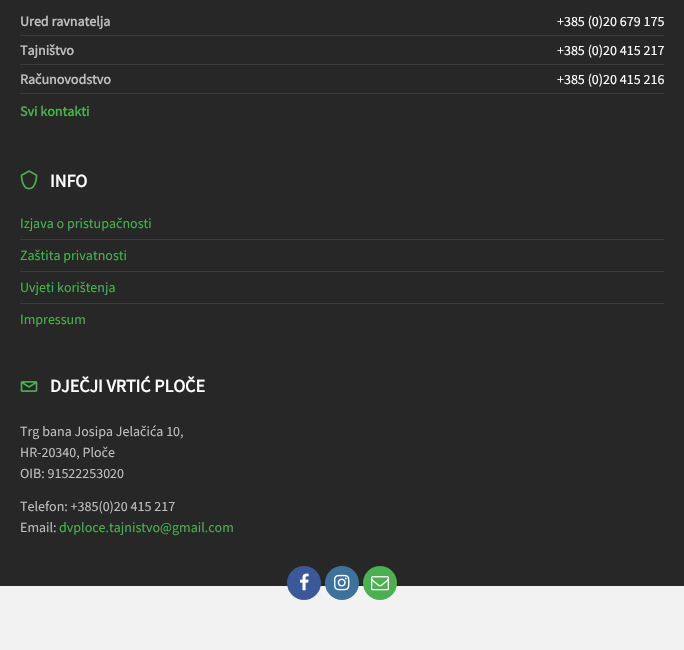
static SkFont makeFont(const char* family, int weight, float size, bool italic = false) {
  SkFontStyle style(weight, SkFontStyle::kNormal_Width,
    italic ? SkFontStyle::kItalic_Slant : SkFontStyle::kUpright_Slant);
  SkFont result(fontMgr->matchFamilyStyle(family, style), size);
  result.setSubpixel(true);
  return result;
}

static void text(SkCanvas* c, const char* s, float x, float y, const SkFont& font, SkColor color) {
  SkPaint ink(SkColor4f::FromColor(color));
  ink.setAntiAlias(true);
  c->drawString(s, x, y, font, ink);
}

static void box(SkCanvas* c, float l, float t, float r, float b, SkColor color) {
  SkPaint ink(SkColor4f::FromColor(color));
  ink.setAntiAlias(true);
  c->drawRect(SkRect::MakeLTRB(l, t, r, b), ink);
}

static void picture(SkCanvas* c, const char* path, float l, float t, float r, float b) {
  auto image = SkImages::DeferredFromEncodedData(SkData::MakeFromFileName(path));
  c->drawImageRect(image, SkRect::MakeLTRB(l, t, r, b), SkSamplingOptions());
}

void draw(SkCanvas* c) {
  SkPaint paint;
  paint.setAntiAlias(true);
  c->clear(0xfff2f2f2);
  box(c, 0, 0, 684, 586, 0xff272727);
  SkFont face1 = makeFont("Source Sans Pro", 700, 14);
  text(c, "Ured ravnatelja", 20, 26, face1, 0xffbebebe);
  SkFont face2 = makeFont("Source Sans Pro", 400, 14);
  text(c, "+385 (0)20 679 175", 557, 26, face2, 0xffffffff);
  box(c, 20, 35, 664, 36, 0xff3d3d3d);
  text(c, "Tajništvo", 20, 55, face1, 0xffbebebe);
  text(c, "+385 (0)20 415 217", 557, 55, face2, 0xffffffff);
  box(c, 20, 64, 664, 65, 0xff3d3d3d);
  text(c, "Računovodstvo", 20, 84, face1, 0xffbebebe);
  text(c, "+385 (0)20 415 216", 557, 84, face2, 0xffffffff);
  box(c, 20, 93, 664, 94, 0xff3d3d3d);
  text(c, "Svi kontakti", 20, 116, face1, 0xff4caf50);
  picture(c, "img_01.png", 20, 170, 38, 190);
  SkFont face3 = makeFont("Source Sans Pro", 700, 18);
  text(c, "INFO", 50, 187, face3, 0xffffffff);
  text(c, "Izjava o pristupačnosti", 20, 228, face2, 0xff4caf50);
  box(c, 20, 239, 664, 240, 0xff3d3d3d);
  text(c, "Zaštita privatnosti", 20, 260, face2, 0xff4caf50);
  box(c, 20, 271, 664, 272, 0xff3d3d3d);
  text(c, "Uvjeti korištenja", 20, 292, face2, 0xff4caf50);
  box(c, 20, 303, 664, 304, 0xff3d3d3d);
  text(c, "Impressum", 20, 324, face2, 0xff4caf50);
  picture(c, "img_02.png", 20, 381, 38, 392);
  text(c, "DJEČJI VRTIĆ PLOČE", 50, 392, face3, 0xffffffff);
  text(c, "Trg bana Josipa Jelačića 10,", 20, 436, face2, 0xffbebebe);
  text(c, "HR-20340, Ploče", 20, 457, face2, 0xffbebebe);
  text(c, "OIB: 91522253020", 20, 478, face2, 0xffbebebe);
  text(c, "Telefon: +385(0)20 415 217", 20, 511, face2, 0xffbebebe);
  text(c, "Email:", 20, 532, face2, 0xffbebebe);
  text(c, "dvploce.tajnistvo@gmail.com", 59, 532, face2, 0xff4caf50);
  paint.setColor(0xff3b5998);
  c->drawCircle(304, 583, 17, paint);
  picture(c, "img_03.png", 299, 573, 309, 591);
  paint.setColor(0xff3f729b);
  c->drawCircle(342, 583, 17, paint);
  picture(c, "img_04.png", 334, 574, 350, 591);
  paint.setColor(0xff4caf50);
  c->drawCircle(380, 583, 17, paint);
  picture(c, "img_05.png", 371, 576, 389, 591);
}
